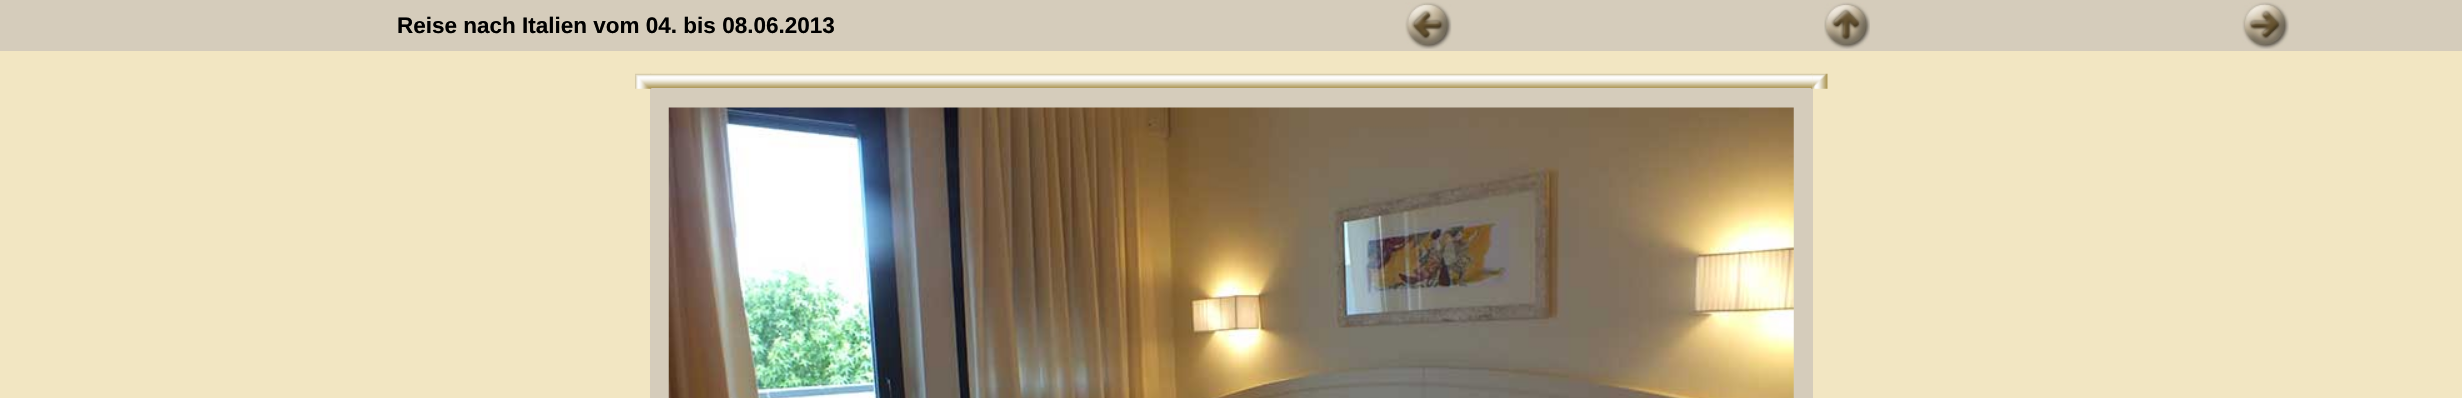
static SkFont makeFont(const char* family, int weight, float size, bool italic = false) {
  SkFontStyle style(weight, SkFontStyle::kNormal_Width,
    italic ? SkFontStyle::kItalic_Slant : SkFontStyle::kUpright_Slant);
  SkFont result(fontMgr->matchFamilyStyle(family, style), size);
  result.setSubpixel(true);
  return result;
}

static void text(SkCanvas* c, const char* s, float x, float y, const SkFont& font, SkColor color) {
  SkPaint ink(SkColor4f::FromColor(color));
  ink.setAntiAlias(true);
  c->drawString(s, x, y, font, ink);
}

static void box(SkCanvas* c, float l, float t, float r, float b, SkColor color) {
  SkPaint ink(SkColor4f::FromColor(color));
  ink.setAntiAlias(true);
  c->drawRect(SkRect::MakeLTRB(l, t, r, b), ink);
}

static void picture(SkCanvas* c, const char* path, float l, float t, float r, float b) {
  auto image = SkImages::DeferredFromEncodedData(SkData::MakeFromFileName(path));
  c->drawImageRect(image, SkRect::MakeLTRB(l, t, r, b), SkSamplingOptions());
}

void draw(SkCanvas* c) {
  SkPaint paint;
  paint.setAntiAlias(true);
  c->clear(0xfff2e6c2);
  box(c, 0, 0, 2462, 51, 0xffd5ccbb);
  SkFont face1 = makeFont("Liberation Sans", 700, 22.5f);
  text(c, "Reise nach Italien vom 04. bis 08.06.2013", 397, 33, face1, 0xff000000);
  picture(c, "img_01.png", 1405, 2, 1452, 49);
  picture(c, "img_02.png", 1824, 2, 1870, 49);
  picture(c, "img_03.png", 2242, 2, 2289, 49);
  picture(c, "img_04.png", 635, 73, 650, 89);
  picture(c, "img_05.png", 650, 73, 1813, 88);
  box(c, 650, 88, 1813, 398, 0xffd5ccbb);
  picture(c, "img_06.png", 650, 73, 652, 89);
  picture(c, "img_07.png", 1811, 73, 1813, 89);
  picture(c, "img_08.png", 1812, 73, 1828, 89);
  picture(c, "img_09.png", 668, 107, 1794, 398);
}
